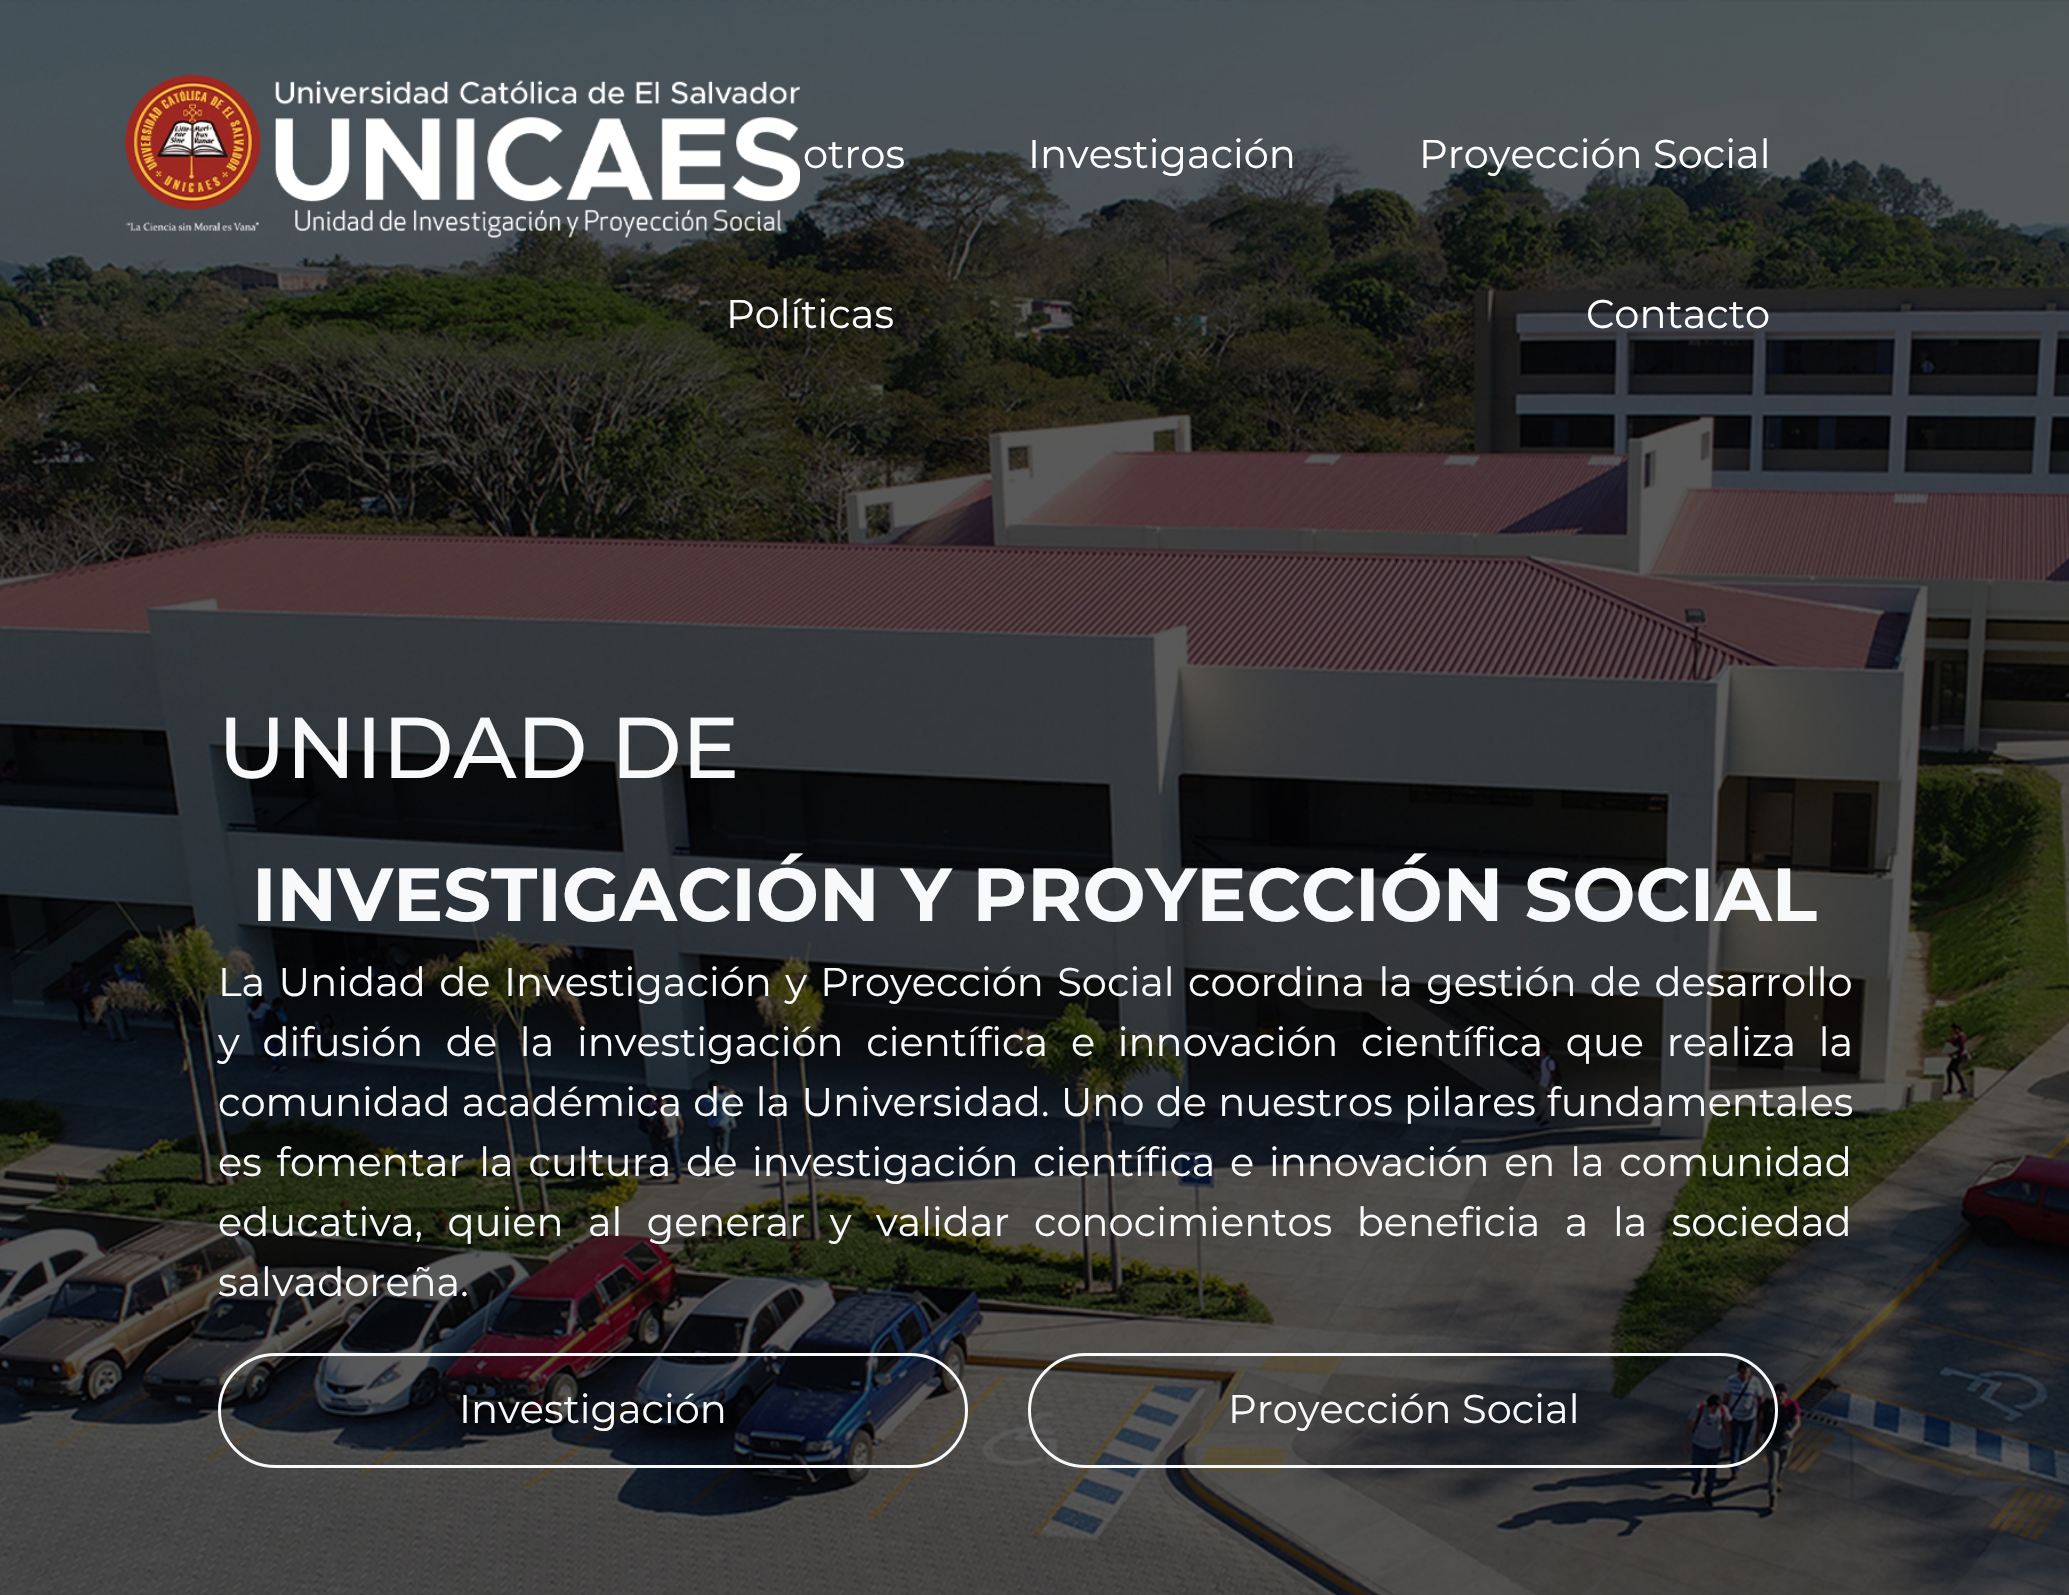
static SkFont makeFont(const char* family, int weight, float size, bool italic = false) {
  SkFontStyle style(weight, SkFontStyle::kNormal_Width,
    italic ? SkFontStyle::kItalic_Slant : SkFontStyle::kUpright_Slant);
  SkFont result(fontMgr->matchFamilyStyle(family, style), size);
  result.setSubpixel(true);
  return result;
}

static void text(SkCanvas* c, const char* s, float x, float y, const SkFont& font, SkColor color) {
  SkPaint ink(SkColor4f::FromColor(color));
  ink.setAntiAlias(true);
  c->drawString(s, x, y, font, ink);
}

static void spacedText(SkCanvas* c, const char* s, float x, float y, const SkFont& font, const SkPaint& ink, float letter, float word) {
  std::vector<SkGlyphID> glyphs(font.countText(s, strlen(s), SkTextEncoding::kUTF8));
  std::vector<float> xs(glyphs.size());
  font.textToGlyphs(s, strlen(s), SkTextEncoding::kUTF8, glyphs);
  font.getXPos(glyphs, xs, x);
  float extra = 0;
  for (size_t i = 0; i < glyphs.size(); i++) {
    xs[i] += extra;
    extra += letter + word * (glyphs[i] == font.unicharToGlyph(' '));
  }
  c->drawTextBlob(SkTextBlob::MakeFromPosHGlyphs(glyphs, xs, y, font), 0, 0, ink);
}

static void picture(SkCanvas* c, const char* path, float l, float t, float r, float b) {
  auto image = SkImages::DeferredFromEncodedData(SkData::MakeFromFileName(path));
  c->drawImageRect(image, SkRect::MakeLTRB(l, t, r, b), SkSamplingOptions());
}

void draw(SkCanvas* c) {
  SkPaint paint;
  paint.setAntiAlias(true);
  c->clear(0xffffffff);
  picture(c, "img_01.png", 0, 0, 2069, 1595);
  picture(c, "img_02.png", 125, 75, 800, 238);
  SkFont face1 = makeFont("Montserrat", 400, 40);
  text(c, "otros", 803, 168, face1, 0xffffffff);
  text(c, "Investigación", 1028, 168, face1, 0xffffffff);
  text(c, "Proyección Social", 1419, 168, face1, 0xffffffff);
  text(c, "Políticas", 726, 328, face1, 0xffffffff);
  text(c, "Contacto", 1586, 328, face1, 0xffffffff);
  SkFont face2 = makeFont("Montserrat", 500, 86);
  text(c, "UNIDAD DE", 218, 778, face2, 0xfff8f9fa);
  SkFont face3 = makeFont("Montserrat", 700, 74.9f);
  text(c, "INVESTIGACIÓN Y PROYECCIÓN SOCIAL", 252, 921, face3, 0xfff8f9fa);
  paint.setColor(0xfff8f9fa);
  spacedText(c, "La Unidad de Investigación y Proyección Social coordina la gestión de desarrollo", 218, 996, face1, paint, 0, 2.9f);
  spacedText(c, "y difusión de la investigación científica e innovación científica que realiza la", 218, 1056, face1, paint, 0, 12.25f);
  spacedText(c, "comunidad académica de la Universidad. Uno de nuestros pilares fundamentales", 218, 1116, face1, paint, 0, 0.75f);
  spacedText(c, "es fomentar la cultura de investigación científica e innovación en la comunidad", 218, 1176, face1, paint, 0, 4.25f);
  spacedText(c, "educativa, quien al generar y validar conocimientos beneficia a la sociedad", 218, 1236, face1, paint, 0, 14);
  text(c, "salvadoreña.", 218, 1296, face1, 0xfff8f9fa);
  paint.setStyle(SkPaint::kStroke_Style);
  paint.setStrokeWidth(3);
  c->drawRoundRect(SkRect::MakeLTRB(219.5f, 1354.5f, 966.5f, 1466.5f), 56, 56, paint);
  text(c, "Investigación", 459, 1423, face1, 0xfff8f9fa);
  c->drawRoundRect(SkRect::MakeLTRB(1029.5f, 1354.5f, 1776.5f, 1466.5f), 56, 56, paint);
  text(c, "Proyección Social", 1228, 1423, face1, 0xfff8f9fa);
}
